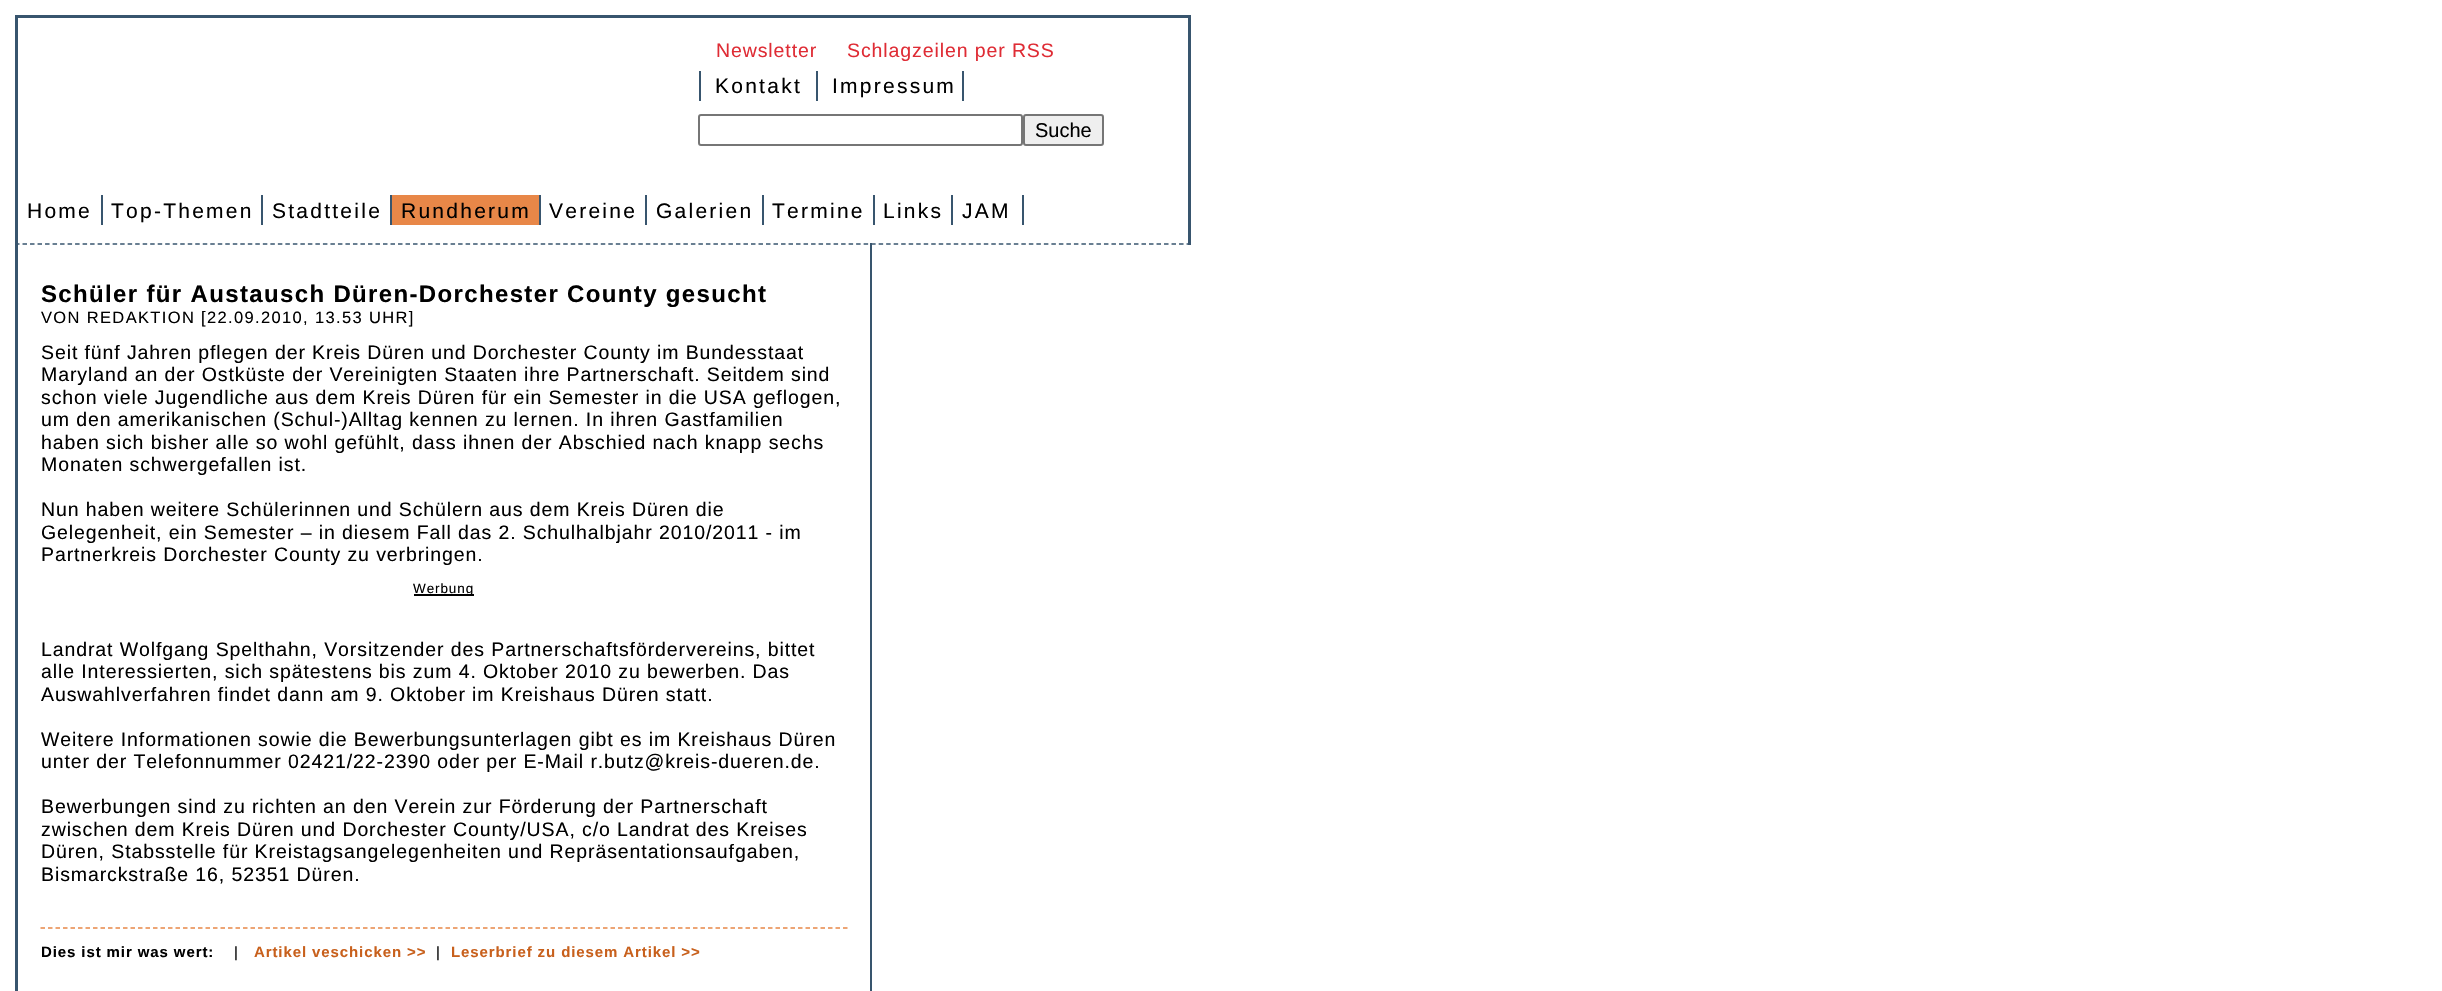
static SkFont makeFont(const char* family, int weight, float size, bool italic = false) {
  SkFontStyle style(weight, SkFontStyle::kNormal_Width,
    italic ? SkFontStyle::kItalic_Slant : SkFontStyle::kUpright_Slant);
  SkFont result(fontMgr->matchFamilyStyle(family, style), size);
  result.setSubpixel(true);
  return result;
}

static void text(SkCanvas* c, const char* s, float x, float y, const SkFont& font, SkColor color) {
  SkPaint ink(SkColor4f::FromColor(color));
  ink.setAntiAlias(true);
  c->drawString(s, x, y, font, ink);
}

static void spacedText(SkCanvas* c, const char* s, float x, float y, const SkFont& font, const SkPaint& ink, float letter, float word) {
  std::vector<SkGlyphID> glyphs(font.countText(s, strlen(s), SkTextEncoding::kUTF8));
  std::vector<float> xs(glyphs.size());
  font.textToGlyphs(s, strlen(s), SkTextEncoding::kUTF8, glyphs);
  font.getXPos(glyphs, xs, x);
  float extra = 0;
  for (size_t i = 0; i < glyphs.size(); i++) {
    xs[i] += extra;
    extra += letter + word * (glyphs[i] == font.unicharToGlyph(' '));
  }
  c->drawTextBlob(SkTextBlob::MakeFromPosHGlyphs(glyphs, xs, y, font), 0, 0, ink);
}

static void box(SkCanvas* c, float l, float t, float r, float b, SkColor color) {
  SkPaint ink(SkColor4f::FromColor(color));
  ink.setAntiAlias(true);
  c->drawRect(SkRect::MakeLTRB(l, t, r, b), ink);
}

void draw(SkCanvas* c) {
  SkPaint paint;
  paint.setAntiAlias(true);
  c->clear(0xffffffff);
  box(c, 15, 15, 1191, 18, 0xff38556e);
  box(c, 1188, 15, 1191, 245, 0xff38556e);
  paint.setStyle(SkPaint::kStroke_Style);
  paint.setStrokeWidth(1.5f);
  paint.setColor(0xff38556e);
  paint.setPathEffect(SkDashPathEffect::Make({{4.5f, 3.01f}}, 0));
  c->drawPath(SkPathBuilder().moveTo(15, 244).lineTo(1191, 244).detach(), paint);
  paint.setPathEffect(nullptr);
  box(c, 15, 15, 18, 991, 0xff38556e);
  SkFont face1 = makeFont("Liberation Sans", 400, 19.5f);
  paint.setStyle(SkPaint::kFill_Style);
  paint.setColor(0xffdf2c35);
  spacedText(c, "Newsletter", 716, 57, face1, paint, 0.9f, 0);
  spacedText(c, "Schlagzeilen per RSS", 847, 57, face1, paint, 0.9f, 0);
  SkFont face2 = makeFont("Liberation Sans", 400, 21);
  paint.setColor(0xff000000);
  spacedText(c, "Kontakt", 715, 93, face2, paint, 2.25f, 0);
  box(c, 699, 71, 701, 101, 0xff38556e);
  box(c, 816, 71, 818, 101, 0xff38556e);
  spacedText(c, "Impressum", 832, 93, face2, paint, 2.25f, 0);
  box(c, 962, 71, 964, 101, 0xff38556e);
  paint.setStyle(SkPaint::kStroke_Style);
  paint.setStrokeWidth(2);
  paint.setColor(0xff767676);
  c->drawRoundRect(SkRect::MakeLTRB(699, 115, 1022, 145), 2, 2, paint);
  paint.setStyle(SkPaint::kFill_Style);
  paint.setColor(0xffefefef);
  c->drawRoundRect(SkRect::MakeLTRB(1024, 115, 1103, 145), 2, 2, paint);
  paint.setStyle(SkPaint::kStroke_Style);
  paint.setColor(0xff767676);
  c->drawRoundRect(SkRect::MakeLTRB(1024, 115, 1103, 145), 2, 2, paint);
  SkFont face3 = makeFont("Liberation Sans", 400, 20);
  text(c, "Suche", 1035, 137, face3, 0xff000000);
  paint.setStyle(SkPaint::kFill_Style);
  paint.setColor(0xff000000);
  spacedText(c, "Home", 27, 218, face2, paint, 2.25f, 0);
  box(c, 101, 195, 103, 225, 0xff38556e);
  spacedText(c, "Top-Themen", 111, 218, face2, paint, 2.25f, 0);
  box(c, 261, 195, 263, 225, 0xff38556e);
  spacedText(c, "Stadtteile", 272, 218, face2, paint, 2.25f, 0);
  box(c, 390, 195, 392, 225, 0xff38556e);
  box(c, 392, 195, 539, 225, 0xffe88748);
  spacedText(c, "Rundherum", 401, 218, face2, paint, 2.25f, 0);
  box(c, 539, 195, 541, 225, 0xff38556e);
  spacedText(c, "Vereine", 549, 218, face2, paint, 2.25f, 0);
  box(c, 645, 195, 647, 225, 0xff38556e);
  spacedText(c, "Galerien", 656, 218, face2, paint, 2.25f, 0);
  box(c, 762, 195, 764, 225, 0xff38556e);
  spacedText(c, "Termine", 772, 218, face2, paint, 2.25f, 0);
  box(c, 873, 195, 875, 225, 0xff38556e);
  spacedText(c, "Links", 883, 218, face2, paint, 2.25f, 0);
  box(c, 951, 195, 953, 225, 0xff38556e);
  spacedText(c, "JAM", 962, 218, face2, paint, 2.25f, 0);
  box(c, 1022, 195, 1024, 225, 0xff38556e);
  box(c, 870, 243, 872, 991, 0xff38556e);
  SkFont face4 = makeFont("Liberation Sans", 700, 24);
  spacedText(c, "Schüler für Austausch Düren-Dorchester County gesucht", 41, 302, face4, paint, 1.35f, 0);
  SkFont face5 = makeFont("Liberation Sans", 400, 16.5f);
  spacedText(c, "VON REDAKTION [22.09.2010, 13.53 UHR]", 41, 323, face5, paint, 1.35f, 0);
  spacedText(c, "Seit fünf Jahren pflegen der Kreis Düren und Dorchester County im Bundesstaat", 41, 359, face1, paint, 0.9f, 0);
  spacedText(c, "Maryland an der Ostküste der Vereinigten Staaten ihre Partnerschaft. Seitdem sind", 41, 381, face1, paint, 0.9f, 0);
  spacedText(c, "schon viele Jugendliche aus dem Kreis Düren für ein Semester in die USA geflogen,", 41, 404, face1, paint, 0.9f, 0);
  spacedText(c, "um den amerikanischen (Schul-)Alltag kennen zu lernen. In ihren Gastfamilien", 41, 426, face1, paint, 0.9f, 0);
  spacedText(c, "haben sich bisher alle so wohl gefühlt, dass ihnen der Abschied nach knapp sechs", 41, 449, face1, paint, 0.9f, 0);
  spacedText(c, "Monaten schwergefallen ist.", 41, 471, face1, paint, 0.9f, 0);
  spacedText(c, "Nun haben weitere Schülerinnen und Schülern aus dem Kreis Düren die", 41, 516, face1, paint, 0.9f, 0);
  spacedText(c, "Gelegenheit, ein Semester – in diesem Fall das 2. Schulhalbjahr 2010/2011 - im", 41, 539, face1, paint, 0.9f, 0);
  spacedText(c, "Partnerkreis Dorchester County zu verbringen.", 41, 561, face1, paint, 0.9f, 0);
  box(c, 414, 594, 474, 596, 0xff000000);
  SkFont face6 = makeFont("Liberation Sans", 400, 13.5f);
  spacedText(c, "Werbung", 413, 593, face6, paint, 0.9f, 0);
  spacedText(c, "Landrat Wolfgang Spelthahn, Vorsitzender des Partnerschaftsfördervereins, bittet", 41, 656, face1, paint, 0.9f, 0);
  spacedText(c, "alle Interessierten, sich spätestens bis zum 4. Oktober 2010 zu bewerben. Das", 41, 678, face1, paint, 0.9f, 0);
  spacedText(c, "Auswahlverfahren findet dann am 9. Oktober im Kreishaus Düren statt.", 41, 701, face1, paint, 0.9f, 0);
  spacedText(c, "Weitere Informationen sowie die Bewerbungsunterlagen gibt es im Kreishaus Düren", 41, 746, face1, paint, 0.9f, 0);
  spacedText(c, "unter der Telefonnummer 02421/22-2390 oder per E-Mail r.butz@kreis-dueren.de.", 41, 768, face1, paint, 0.9f, 0);
  spacedText(c, "Bewerbungen sind zu richten an den Verein zur Förderung der Partnerschaft", 41, 813, face1, paint, 0.9f, 0);
  spacedText(c, "zwischen dem Kreis Düren und Dorchester County/USA, c/o Landrat des Kreises", 41, 836, face1, paint, 0.9f, 0);
  spacedText(c, "Düren, Stabsstelle für Kreistagsangelegenheiten und Repräsentationsaufgaben,", 41, 858, face1, paint, 0.9f, 0);
  spacedText(c, "Bismarckstraße 16, 52351 Düren.", 41, 881, face1, paint, 0.9f, 0);
  paint.setStyle(SkPaint::kStroke_Style);
  paint.setStrokeWidth(1.5f);
  paint.setColor(0xffe88748);
  paint.setPathEffect(SkDashPathEffect::Make({{4.5f, 3}}, 0));
  c->drawPath(SkPathBuilder().moveTo(40.5f, 928).lineTo(847.5f, 928).detach(), paint);
  paint.setPathEffect(nullptr);
  SkFont face7 = makeFont("Liberation Sans", 700, 15);
  paint.setStyle(SkPaint::kFill_Style);
  paint.setColor(0xff000000);
  spacedText(c, "Dies ist mir was wert:", 41, 957, face7, paint, 0.9f, 0);
  SkFont face8 = makeFont("Liberation Sans", 400, 15);
  spacedText(c, "|", 234, 957, face8, paint, 0.9f, 0);
  paint.setColor(0xffc8601c);
  spacedText(c, "Artikel veschicken >>", 254, 957, face7, paint, 0.9f, 0);
  paint.setColor(0xff000000);
  spacedText(c, "|", 436, 957, face8, paint, 0.9f, 0);
  paint.setColor(0xffc8601c);
  spacedText(c, "Leserbrief zu diesem Artikel >>", 451, 957, face7, paint, 0.9f, 0);
}
